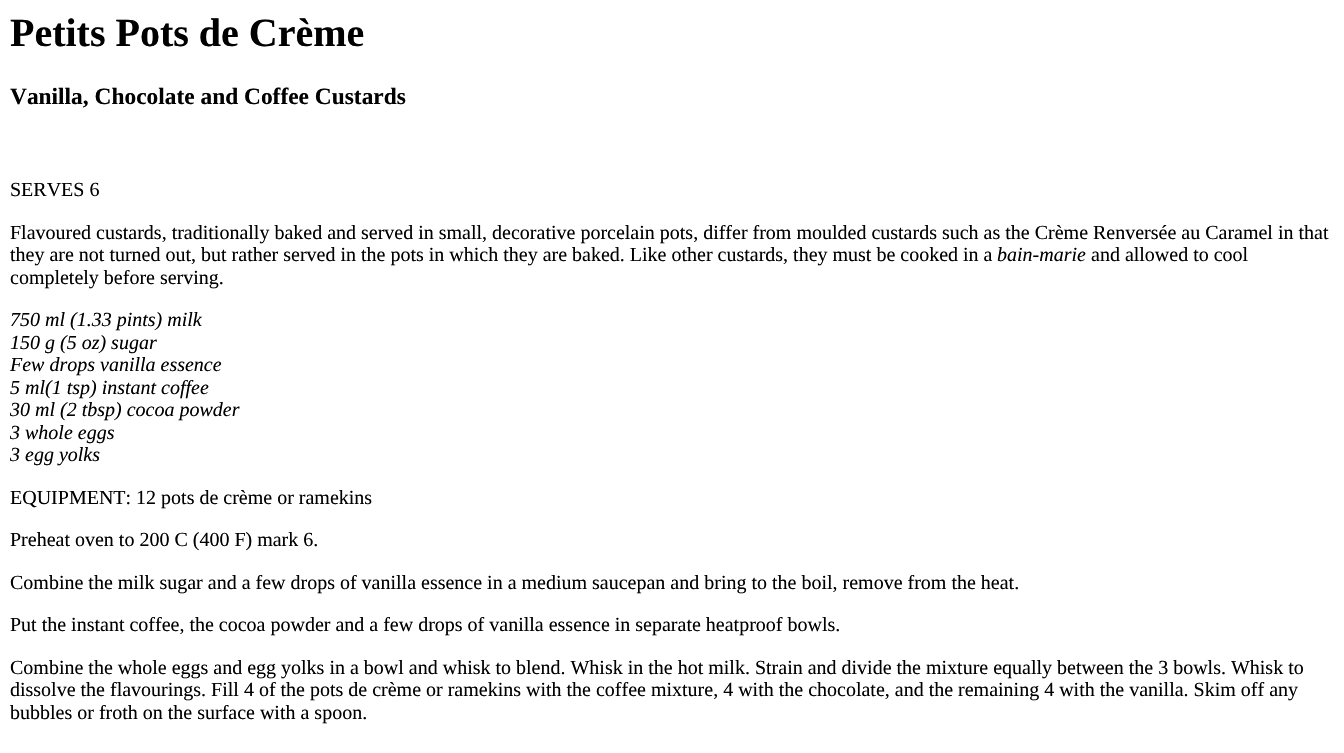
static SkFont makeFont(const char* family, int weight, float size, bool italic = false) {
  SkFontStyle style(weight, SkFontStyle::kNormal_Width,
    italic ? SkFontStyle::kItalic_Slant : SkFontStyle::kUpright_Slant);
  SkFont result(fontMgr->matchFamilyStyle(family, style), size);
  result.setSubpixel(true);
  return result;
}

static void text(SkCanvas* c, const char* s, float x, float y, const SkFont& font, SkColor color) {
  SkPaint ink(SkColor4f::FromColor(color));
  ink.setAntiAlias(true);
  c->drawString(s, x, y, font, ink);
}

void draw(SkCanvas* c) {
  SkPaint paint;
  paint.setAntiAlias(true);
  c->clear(0xffffffff);
  SkFont face1 = makeFont("Liberation Serif", 700, 40);
  text(c, "Petits Pots de Crème", 10, 46, face1, 0xff000000);
  SkFont face2 = makeFont("Liberation Serif", 700, 23.4f);
  text(c, "Vanilla, Chocolate and Coffee Custards", 10, 104, face2, 0xff000000);
  SkFont face3 = makeFont("Liberation Serif", 400, 20);
  text(c, "SERVES 6", 10, 196, face3, 0xff000000);
  text(c, "Flavoured custards, traditionally baked and served in small, decorative porcelain pots, differ from moulded custards such as the Crème Renversée au Caramel in that", 10, 239, face3, 0xff000000);
  text(c, "they are not turned out, but rather served in the pots in which they are baked. Like other custards, they must be cooked in a", 10, 261, face3, 0xff000000);
  SkFont face4 = makeFont("Liberation Serif", 400, 20, true);
  text(c, "bain-marie", 997, 261, face4, 0xff000000);
  text(c, "and allowed to cool", 1091, 261, face3, 0xff000000);
  text(c, "completely before serving.", 10, 284, face3, 0xff000000);
  text(c, "750 ml (1.33 pints) milk", 10, 326, face4, 0xff000000);
  text(c, "150 g (5 oz) sugar", 10, 349, face4, 0xff000000);
  text(c, "Few drops vanilla essence", 10, 371, face4, 0xff000000);
  text(c, "5 ml(1 tsp) instant coffee", 10, 394, face4, 0xff000000);
  text(c, "30 ml (2 tbsp) cocoa powder", 10, 416, face4, 0xff000000);
  text(c, "3 whole eggs", 10, 439, face4, 0xff000000);
  text(c, "3 egg yolks", 10, 461, face4, 0xff000000);
  text(c, "EQUIPMENT: 12 pots de crème or ramekins", 10, 504, face3, 0xff000000);
  text(c, "Preheat oven to 200 C (400 F) mark 6.", 10, 546, face3, 0xff000000);
  text(c, "Combine the milk sugar and a few drops of vanilla essence in a medium saucepan and bring to the boil, remove from the heat.", 10, 589, face3, 0xff000000);
  text(c, "Put the instant coffee, the cocoa powder and a few drops of vanilla essence in separate heatproof bowls.", 10, 631, face3, 0xff000000);
  text(c, "Combine the whole eggs and egg yolks in a bowl and whisk to blend. Whisk in the hot milk. Strain and divide the mixture equally between the 3 bowls. Whisk to", 10, 674, face3, 0xff000000);
  text(c, "dissolve the flavourings. Fill 4 of the pots de crème or ramekins with the coffee mixture, 4 with the chocolate, and the remaining 4 with the vanilla. Skim off any", 10, 696, face3, 0xff000000);
  text(c, "bubbles or froth on the surface with a spoon.", 10, 719, face3, 0xff000000);
}
